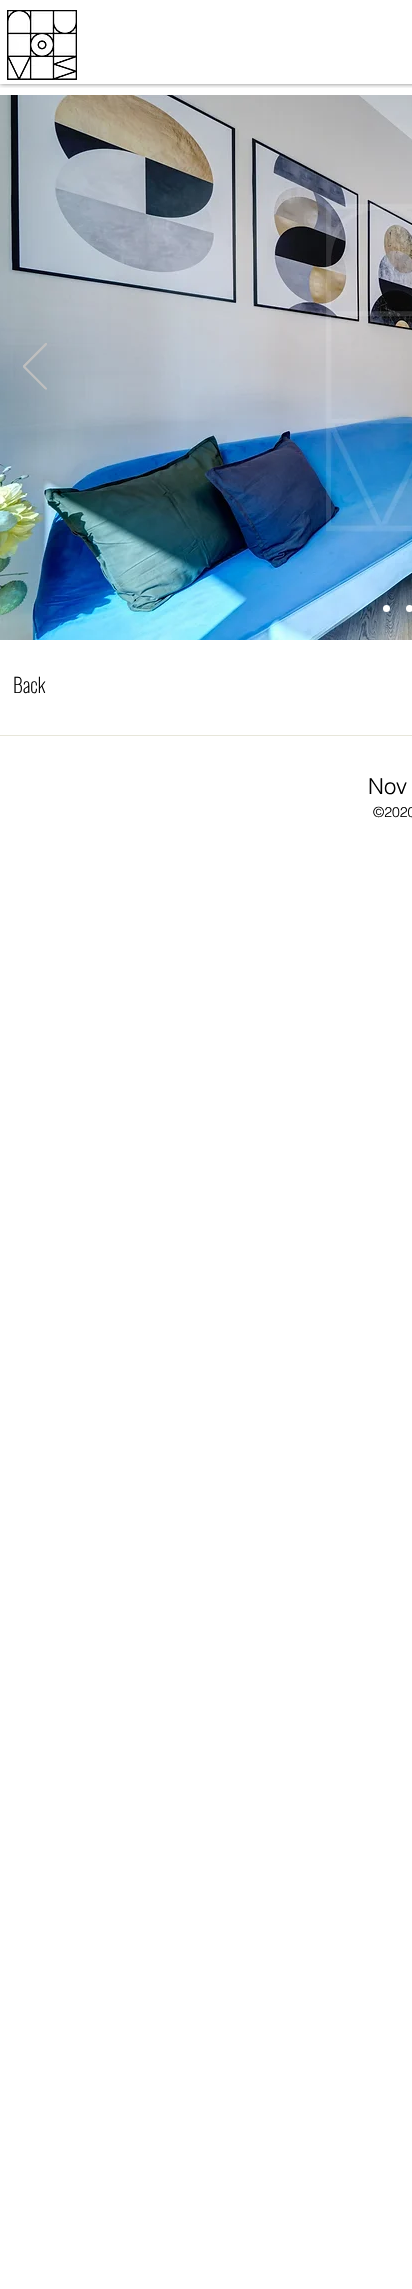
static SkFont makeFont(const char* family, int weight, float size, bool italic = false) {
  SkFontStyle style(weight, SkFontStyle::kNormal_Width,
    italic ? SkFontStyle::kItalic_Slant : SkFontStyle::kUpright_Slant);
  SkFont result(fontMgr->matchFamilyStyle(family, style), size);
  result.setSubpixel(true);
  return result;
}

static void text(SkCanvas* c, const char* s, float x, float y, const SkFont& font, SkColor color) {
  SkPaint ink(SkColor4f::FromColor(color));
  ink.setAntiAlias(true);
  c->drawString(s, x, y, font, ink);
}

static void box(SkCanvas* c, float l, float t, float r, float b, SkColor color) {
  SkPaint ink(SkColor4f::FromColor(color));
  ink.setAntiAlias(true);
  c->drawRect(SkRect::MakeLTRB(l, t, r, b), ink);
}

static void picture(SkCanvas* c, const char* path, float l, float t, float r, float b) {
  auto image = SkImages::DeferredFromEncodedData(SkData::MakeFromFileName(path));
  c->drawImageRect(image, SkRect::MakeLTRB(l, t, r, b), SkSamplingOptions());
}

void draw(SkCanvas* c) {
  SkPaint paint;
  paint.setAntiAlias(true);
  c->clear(0xffffffff);
  c->save();
  c->clipRect(SkRect::MakeLTRB(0, 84, 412, 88));
  paint.setColor(0x80000000);
  paint.setMaskFilter(SkMaskFilter::MakeBlur(kNormal_SkBlurStyle, 2.5f));
  c->drawRect(SkRect::MakeLTRB(0, 0, 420, 84), paint);
  paint.setMaskFilter(nullptr);
  c->restore();
  picture(c, "img_01.png", 7, 10, 77, 80);
  picture(c, "img_02.png", 0, 95, 412, 640);
  paint.setColor(0xffbfbfbf);
  c->drawPath(SkPathBuilder().moveTo(46, 390).lineTo(23, 366).lineTo(46, 343).lineTo(47, 344).lineTo(24, 366).lineTo(47, 389).close().detach(), paint);
  c->save();
  c->clipRect(SkRect::MakeLTRB(23, 343, 47, 389));
  paint.setStyle(SkPaint::kStroke_Style);
  paint.setStrokeWidth(1.1f);
  c->drawPath(SkPathBuilder().moveTo(46, 389.5f).lineTo(23, 366.5f).lineTo(46, 343).lineTo(47, 344).lineTo(24.5f, 366.5f).lineTo(47, 389).close().detach(), paint);
  c->restore();
  paint.setStyle(SkPaint::kFill_Style);
  paint.setColor(0xffffffff);
  c->drawCircle(386.5f, 608.5f, 3.5f, paint);
  c->drawCircle(409.5f, 608.5f, 3.5f, paint);
  SkFont face1 = makeFont("Oswald", 200, 20);
  text(c, "Back", 13, 693, face1, 0xff000000);
  box(c, 0, 735, 412, 736, 0xffe7e6da);
  SkFont face2 = makeFont("helvetica", 300, 22);
  text(c, "Nov", 368, 794, face2, 0xff000000);
  SkFont face3 = makeFont("helvetica", 300, 14);
  text(c, "©2020", 373, 817, face3, 0xff000000);
}
